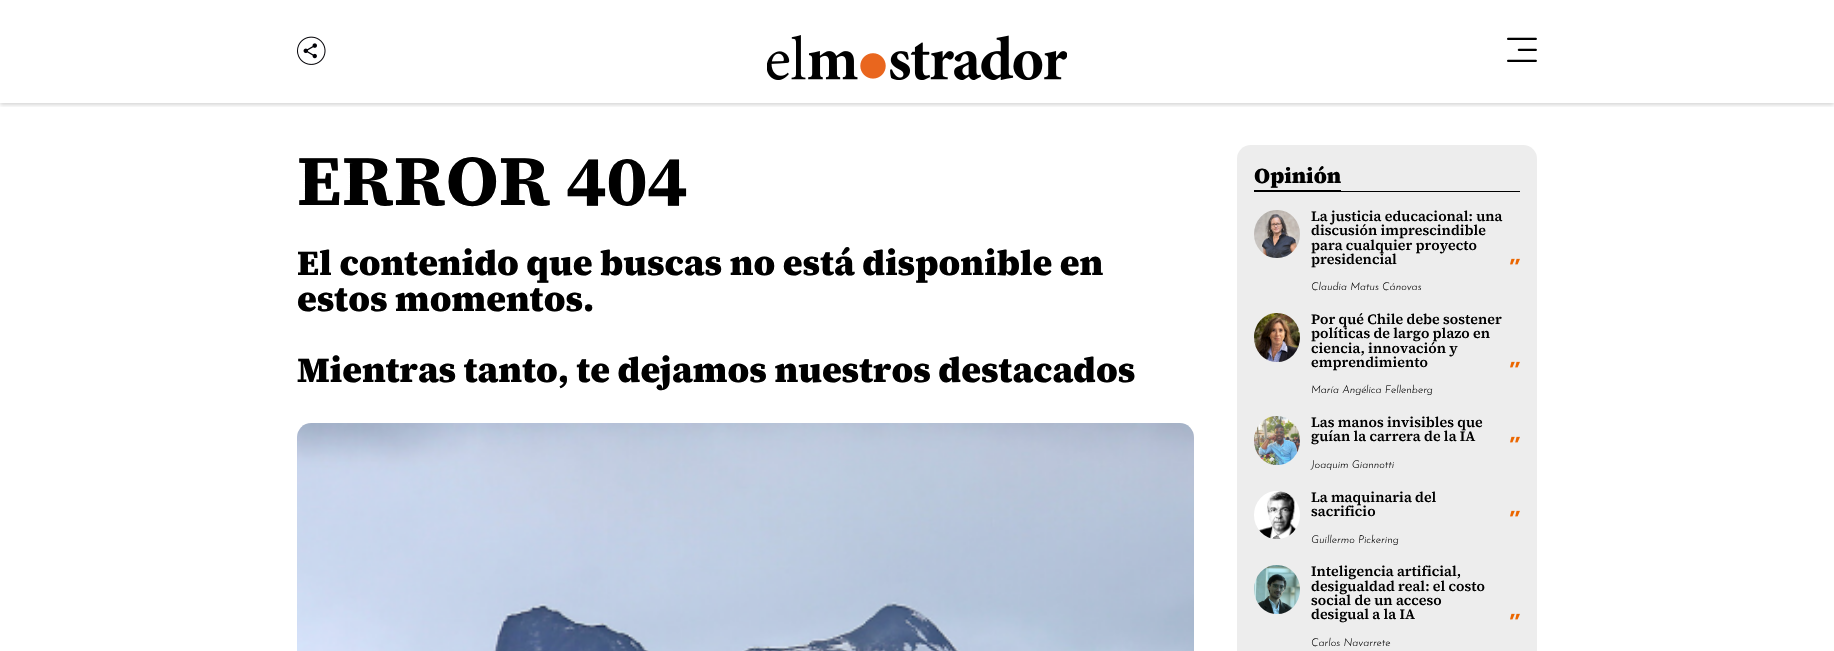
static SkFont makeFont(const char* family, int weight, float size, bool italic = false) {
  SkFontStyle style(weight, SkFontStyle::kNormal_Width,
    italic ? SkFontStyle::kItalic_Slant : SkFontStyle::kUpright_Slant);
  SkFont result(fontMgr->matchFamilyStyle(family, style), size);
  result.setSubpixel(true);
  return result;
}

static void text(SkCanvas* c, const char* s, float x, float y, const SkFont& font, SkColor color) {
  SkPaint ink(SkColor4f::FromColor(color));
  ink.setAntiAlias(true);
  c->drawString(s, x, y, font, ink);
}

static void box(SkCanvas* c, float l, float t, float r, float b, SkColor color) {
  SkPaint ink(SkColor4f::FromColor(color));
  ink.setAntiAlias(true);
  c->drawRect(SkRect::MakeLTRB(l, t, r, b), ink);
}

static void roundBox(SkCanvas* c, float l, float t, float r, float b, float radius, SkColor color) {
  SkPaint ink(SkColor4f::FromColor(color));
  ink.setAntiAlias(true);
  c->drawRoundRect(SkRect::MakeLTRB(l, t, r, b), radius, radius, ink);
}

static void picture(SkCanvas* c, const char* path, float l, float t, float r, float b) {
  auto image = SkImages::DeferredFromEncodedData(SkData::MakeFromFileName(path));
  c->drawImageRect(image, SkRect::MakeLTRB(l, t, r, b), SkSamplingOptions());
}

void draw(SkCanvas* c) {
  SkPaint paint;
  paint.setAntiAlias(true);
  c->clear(0xffffffff);
  c->save();
  c->clipRect(SkRect::MakeLTRB(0, 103, 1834, 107));
  paint.setColor(0x29000000);
  paint.setMaskFilter(SkMaskFilter::MakeBlur(kNormal_SkBlurStyle, 2));
  c->drawRect(SkRect::MakeLTRB(0, 2, 1834, 105), paint);
  paint.setMaskFilter(nullptr);
  c->restore();
  picture(c, "img_01.png", 297, 36, 326, 65);
  picture(c, "img_02.png", 767, 35, 1067, 80);
  picture(c, "img_03.png", 1507, 37, 1537, 62);
  SkFont face1 = makeFont("Source Serif 4", 700, 71.25f);
  text(c, "ERROR 404", 297, 205, face1, 0xff000000);
  SkFont face2 = makeFont("Source Serif 4", 900, 35.6f);
  text(c, "El contenido que buscas no está disponible en", 297, 275, face2, 0xff000000);
  text(c, "estos momentos.", 297, 311, face2, 0xff000000);
  text(c, "Mientras tanto, te dejamos nuestros destacados", 297, 382, face2, 0xff000000);
  picture(c, "img_04.png", 297, 423, 1194, 651);
  roundBox(c, 1237, 145, 1537, 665, 14, 0xffededed);
  box(c, 1254, 191, 1520, 192, 0xff000000);
  box(c, 1254, 190, 1341, 191, 0xff000000);
  SkFont face3 = makeFont("Source Serif 4", 900, 21.5f);
  text(c, "Opinión", 1254, 183, face3, 0xff000000);
  picture(c, "img_05.png", 1254, 210, 1300, 258);
  SkFont face4 = makeFont("Source Serif 4", 600, 14.25f);
  text(c, "La justicia educacional: una", 1311, 221, face4, 0xff000000);
  text(c, "discusión imprescindible", 1311, 235, face4, 0xff000000);
  text(c, "para cualquier proyecto", 1311, 250, face4, 0xff000000);
  text(c, "presidencial", 1311, 264, face4, 0xff000000);
  picture(c, "img_06.png", 1510, 258, 1520, 265);
  SkFont face5 = makeFont("Josefin Sans", 300, 10.75f, true);
  text(c, "Claudia Matus Cánovas", 1311, 290, face5, 0xff000000);
  picture(c, "img_07.png", 1254, 313, 1300, 362);
  text(c, "Por qué Chile debe sostener", 1311, 324, face4, 0xff000000);
  text(c, "políticas de largo plazo en", 1311, 338, face4, 0xff000000);
  text(c, "ciencia, innovación y", 1311, 353, face4, 0xff000000);
  text(c, "emprendimiento", 1311, 367, face4, 0xff000000);
  picture(c, "img_06.png", 1510, 361, 1520, 368);
  text(c, "María Angélica Fellenberg", 1311, 393, face5, 0xff000000);
  picture(c, "img_08.png", 1254, 416, 1300, 465);
  text(c, "Las manos invisibles que", 1311, 427, face4, 0xff000000);
  text(c, "guían la carrera de la IA", 1311, 441, face4, 0xff000000);
  picture(c, "img_06.png", 1510, 436, 1520, 443);
  text(c, "Joaquim Giannotti", 1311, 468, face5, 0xff000000);
  picture(c, "img_09.png", 1254, 491, 1300, 539);
  text(c, "La maquinaria del", 1311, 502, face4, 0xff000000);
  text(c, "sacrificio", 1311, 516, face4, 0xff000000);
  picture(c, "img_06.png", 1510, 510, 1520, 517);
  text(c, "Guillermo Pickering", 1311, 543, face5, 0xff000000);
  picture(c, "img_10.png", 1254, 565, 1300, 614);
  text(c, "Inteligencia artificial,", 1311, 576, face4, 0xff000000);
  text(c, "desigualdad real: el costo", 1311, 591, face4, 0xff000000);
  text(c, "social de un acceso", 1311, 605, face4, 0xff000000);
  text(c, "desigual a la IA", 1311, 619, face4, 0xff000000);
  picture(c, "img_06.png", 1510, 613, 1520, 620);
  text(c, "Carlos Navarrete", 1311, 646, face5, 0xff000000);
}
